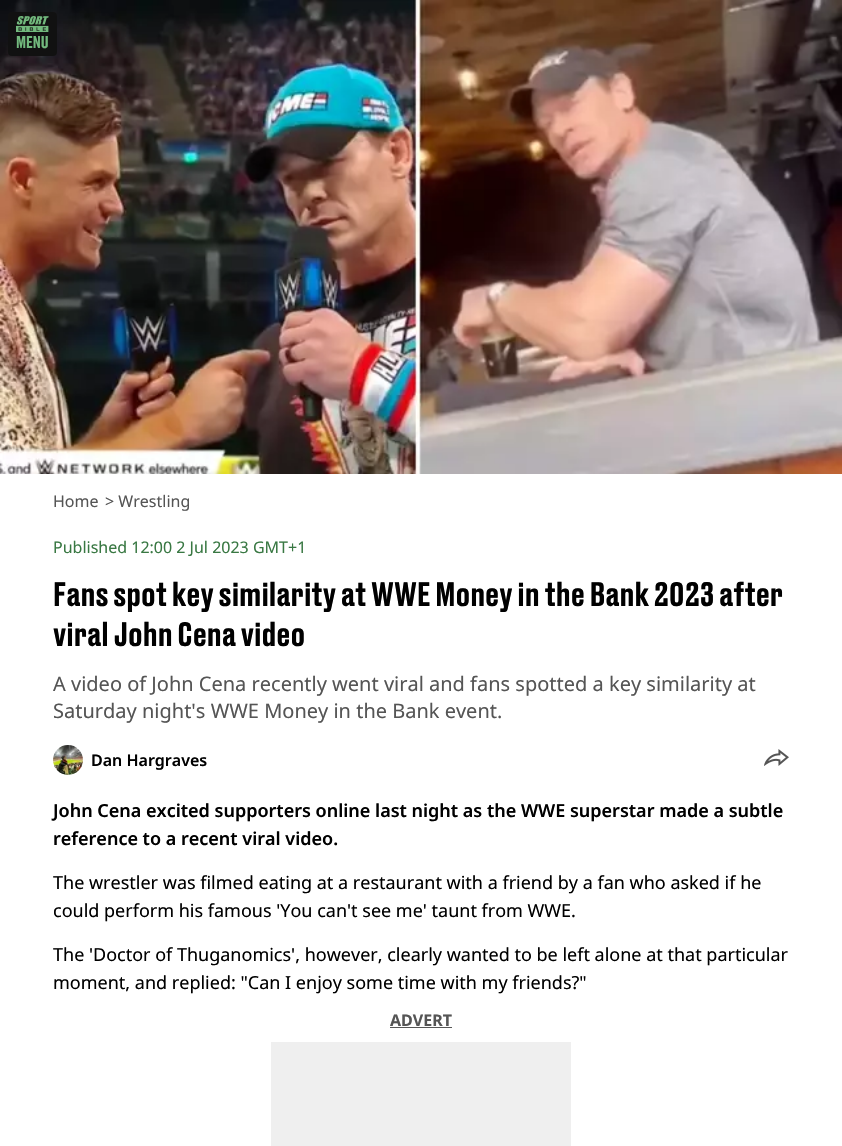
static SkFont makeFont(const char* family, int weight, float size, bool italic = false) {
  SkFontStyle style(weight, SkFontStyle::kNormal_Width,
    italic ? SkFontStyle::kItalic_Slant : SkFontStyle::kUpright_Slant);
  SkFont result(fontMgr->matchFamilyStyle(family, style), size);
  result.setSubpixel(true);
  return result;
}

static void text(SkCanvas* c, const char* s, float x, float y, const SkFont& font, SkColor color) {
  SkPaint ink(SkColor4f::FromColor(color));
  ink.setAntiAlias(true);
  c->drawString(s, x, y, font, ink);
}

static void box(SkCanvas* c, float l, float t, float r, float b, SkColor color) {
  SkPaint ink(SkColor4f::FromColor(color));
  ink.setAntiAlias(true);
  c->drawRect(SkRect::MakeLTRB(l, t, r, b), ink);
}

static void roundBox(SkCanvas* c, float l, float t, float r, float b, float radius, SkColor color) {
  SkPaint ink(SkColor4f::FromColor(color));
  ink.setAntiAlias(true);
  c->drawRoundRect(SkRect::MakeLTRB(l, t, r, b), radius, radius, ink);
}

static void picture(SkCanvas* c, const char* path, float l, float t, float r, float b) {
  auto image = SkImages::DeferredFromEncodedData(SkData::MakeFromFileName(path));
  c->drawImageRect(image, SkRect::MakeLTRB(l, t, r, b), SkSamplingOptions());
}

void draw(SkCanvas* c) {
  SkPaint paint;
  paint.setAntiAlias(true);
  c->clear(0xffffffff);
  picture(c, "img_02.png", 0, 0, 842, 474);
  roundBox(c, 8, 12, 57, 56, 4, 0xff111111);
  picture(c, "img_01.png", 16, 16, 49, 32);
  SkFont face1 = makeFont("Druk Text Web", 500, 16);
  text(c, "MENU", 16, 48, face1, 0xff72b97d);
  SkFont face2 = makeFont("Noto Sans", 400, 16);
  text(c, "Home", 53, 507, face2, 0xff555555);
  text(c, "> Wrestling", 105, 507, face2, 0xff555555);
  text(c, "Published 12:00 2 Jul 2023 GMT+1", 53, 553, face2, 0xff397843);
  SkFont face3 = makeFont("Druk Text Web", 500, 32);
  text(c, "Fans spot key similarity at WWE Money in the Bank 2023 after", 53, 606, face3, 0xff000000);
  text(c, "viral John Cena video", 53, 646, face3, 0xff000000);
  SkFont face4 = makeFont("Noto Sans", 400, 20);
  text(c, "A video of John Cena recently went viral and fans spotted a key similarity at", 53, 691, face4, 0xff555555);
  text(c, "Saturday night's WWE Money in the Bank event.", 53, 718, face4, 0xff555555);
  picture(c, "img_03.png", 53, 745, 83, 775);
  SkFont face5 = makeFont("Noto Sans", 600, 16);
  text(c, "Dan Hargraves", 91, 766, face5, 0xff000000);
  picture(c, "img_04.png", 764, 749, 789, 766);
  SkFont face6 = makeFont("Noto Sans", 600, 18);
  text(c, "John Cena excited supporters online last night as the WWE superstar made a subtle", 53, 817, face6, 0xff000000);
  text(c, "reference to a recent viral video.", 53, 845, face6, 0xff000000);
  SkFont face7 = makeFont("Noto Sans", 400, 18);
  text(c, "The wrestler was filmed eating at a restaurant with a friend by a fan who asked if he", 53, 889, face7, 0xff000000);
  text(c, "could perform his famous 'You can't see me' taunt from WWE.", 53, 917, face7, 0xff000000);
  text(c, "The 'Doctor of Thuganomics', however, clearly wanted to be left alone at that particular", 53, 961, face7, 0xff000000);
  text(c, "moment, and replied: \"Can I enjoy some time with my friends?\"", 53, 989, face7, 0xff000000);
  SkFont face8 = makeFont("Noto Sans", 700, 16);
  text(c, "ADVERT", 390, 1026, face8, 0xff555555);
  box(c, 390, 1027, 452, 1028, 0xff555555);
  box(c, 271, 1042, 571, 1146, 0xffefefef);
}
